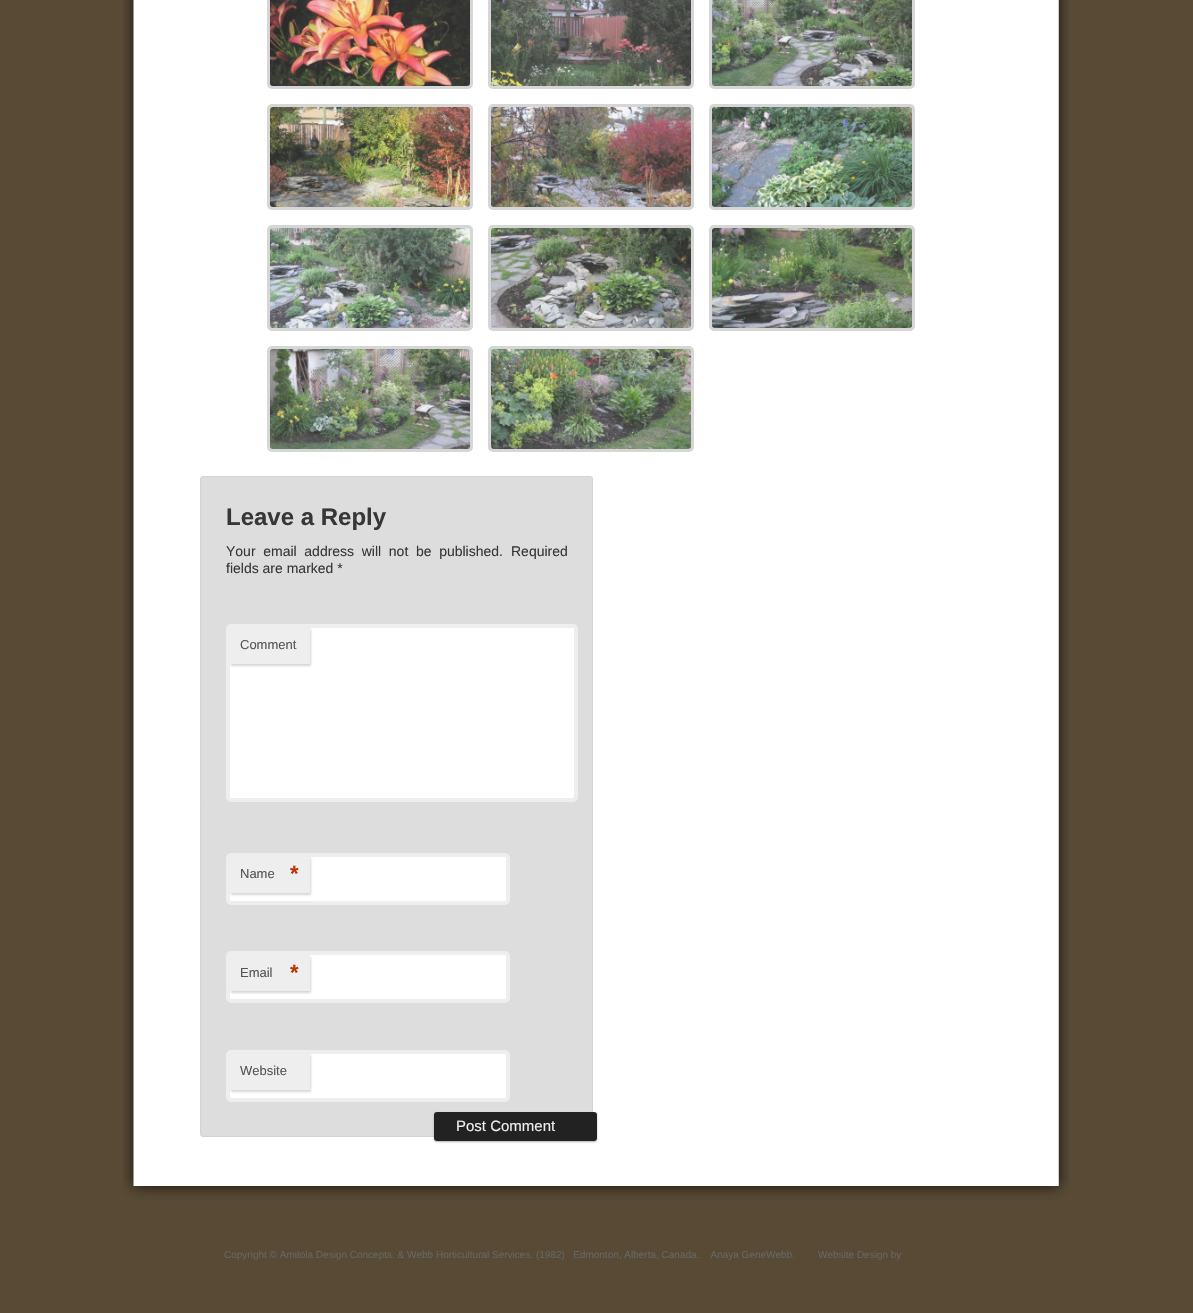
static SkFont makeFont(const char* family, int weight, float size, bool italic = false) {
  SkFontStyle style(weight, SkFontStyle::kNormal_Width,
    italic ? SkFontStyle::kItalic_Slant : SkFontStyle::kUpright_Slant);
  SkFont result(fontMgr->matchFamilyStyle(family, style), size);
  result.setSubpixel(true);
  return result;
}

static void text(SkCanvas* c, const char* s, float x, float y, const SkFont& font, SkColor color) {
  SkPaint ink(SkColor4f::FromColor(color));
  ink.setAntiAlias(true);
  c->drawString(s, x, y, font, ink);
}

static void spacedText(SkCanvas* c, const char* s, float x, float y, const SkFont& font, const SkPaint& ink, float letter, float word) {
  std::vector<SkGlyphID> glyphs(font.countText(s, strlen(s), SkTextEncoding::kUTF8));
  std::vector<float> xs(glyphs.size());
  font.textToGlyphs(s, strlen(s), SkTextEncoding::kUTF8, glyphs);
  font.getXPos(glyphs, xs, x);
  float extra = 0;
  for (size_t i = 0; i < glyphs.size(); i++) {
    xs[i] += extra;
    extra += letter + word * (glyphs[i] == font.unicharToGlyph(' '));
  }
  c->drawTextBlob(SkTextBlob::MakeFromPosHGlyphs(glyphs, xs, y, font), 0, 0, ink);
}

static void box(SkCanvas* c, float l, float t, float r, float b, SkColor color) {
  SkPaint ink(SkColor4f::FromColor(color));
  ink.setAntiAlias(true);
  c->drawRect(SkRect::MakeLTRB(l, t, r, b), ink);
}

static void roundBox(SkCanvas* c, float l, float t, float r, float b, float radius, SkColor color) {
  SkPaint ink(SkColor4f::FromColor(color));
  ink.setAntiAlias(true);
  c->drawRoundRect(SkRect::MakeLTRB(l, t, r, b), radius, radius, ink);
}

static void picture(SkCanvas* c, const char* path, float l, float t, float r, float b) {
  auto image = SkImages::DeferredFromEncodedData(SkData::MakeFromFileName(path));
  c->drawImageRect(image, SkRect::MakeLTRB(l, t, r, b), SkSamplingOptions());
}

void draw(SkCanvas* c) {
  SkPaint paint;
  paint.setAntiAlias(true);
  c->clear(0xff584a35);
  picture(c, "img_01.png", 123, 0, 1069, 1179);
  roundBox(c, 267, -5, 473, 89, 5, 0xffd6d6d6);
  picture(c, "img_02.png", 270, 0, 470, 86);
  roundBox(c, 488, -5, 694, 89, 5, 0xffd6d6d6);
  picture(c, "img_03.png", 491, 0, 691, 86);
  roundBox(c, 709, -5, 915, 89, 5, 0xffd6d6d6);
  picture(c, "img_04.png", 712, 0, 912, 86);
  roundBox(c, 267, 104, 473, 210, 5, 0xffd6d6d6);
  picture(c, "img_05.png", 270, 107, 470, 207);
  roundBox(c, 488, 104, 694, 210, 5, 0xffd6d6d6);
  picture(c, "img_06.png", 491, 107, 691, 207);
  roundBox(c, 709, 104, 915, 210, 5, 0xffd6d6d6);
  picture(c, "img_07.png", 712, 107, 912, 207);
  roundBox(c, 267, 225, 473, 331, 5, 0xffd6d6d6);
  picture(c, "img_08.png", 270, 228, 470, 328);
  roundBox(c, 488, 225, 694, 331, 5, 0xffd6d6d6);
  picture(c, "img_09.png", 491, 228, 691, 328);
  roundBox(c, 709, 225, 915, 331, 5, 0xffd6d6d6);
  picture(c, "img_10.png", 712, 228, 912, 328);
  roundBox(c, 267, 346, 473, 452, 5, 0xffd6d6d6);
  picture(c, "img_11.png", 270, 349, 470, 449);
  roundBox(c, 488, 346, 694, 452, 5, 0xffd6d6d6);
  picture(c, "img_12.png", 491, 349, 691, 449);
  paint.setColor(0xffdddddd);
  c->drawRoundRect(SkRect::MakeLTRB(200.5f, 476.5f, 592.5f, 1136.5f), 2.5f, 2.5f, paint);
  paint.setStyle(SkPaint::kStroke_Style);
  paint.setStrokeWidth(1);
  paint.setColor(0xffd3d3d3);
  c->drawRoundRect(SkRect::MakeLTRB(200.5f, 476.5f, 592.5f, 1136.5f), 2.5f, 2.5f, paint);
  SkFont face1 = makeFont("Liberation Sans", 700, 24);
  text(c, "Leave a Reply", 226, 525, face1, 0xff373737);
  SkFont face2 = makeFont("Liberation Sans", 400, 14);
  paint.setStyle(SkPaint::kFill_Style);
  paint.setColor(0xff373737);
  spacedText(c, "Your email address will not be published.", 226, 556, face2, paint, 0, 3.75f);
  text(c, "Required", 511, 556, face2, 0xff373737);
  text(c, "fields are marked *", 226, 573, face2, 0xff373737);
  paint.setColor(0xffffffff);
  c->drawRoundRect(SkRect::MakeLTRB(228, 626, 576, 800), 3, 3, paint);
  paint.setStyle(SkPaint::kStroke_Style);
  paint.setStrokeWidth(4);
  paint.setColor(0xffeeeeee);
  c->drawRoundRect(SkRect::MakeLTRB(228, 626, 576, 800), 3, 3, paint);
  paint.setStyle(SkPaint::kFill_Style);
  paint.setColor(0xcccccccc);
  paint.setMaskFilter(SkMaskFilter::MakeBlur(kNormal_SkBlurStyle, 1));
  c->drawRect(SkRect::MakeLTRB(231, 629, 311, 666), paint);
  paint.setMaskFilter(nullptr);
  box(c, 230, 628, 310, 664, 0xffeeeeee);
  SkFont face3 = makeFont("Liberation Sans", 400, 13);
  text(c, "Comment", 240, 649, face3, 0xff555555);
  paint.setColor(0xffffffff);
  c->drawRoundRect(SkRect::MakeLTRB(228, 855, 508, 903), 3, 3, paint);
  paint.setStyle(SkPaint::kStroke_Style);
  paint.setColor(0xffeeeeee);
  c->drawRoundRect(SkRect::MakeLTRB(228, 855, 508, 903), 3, 3, paint);
  paint.setStyle(SkPaint::kFill_Style);
  paint.setColor(0xcccccccc);
  paint.setMaskFilter(SkMaskFilter::MakeBlur(kNormal_SkBlurStyle, 1));
  c->drawRect(SkRect::MakeLTRB(231, 858, 311, 895), paint);
  paint.setMaskFilter(nullptr);
  box(c, 230, 857, 310, 893, 0xffeeeeee);
  text(c, "Name", 240, 878, face3, 0xff555555);
  SkFont face4 = makeFont("Liberation Sans", 700, 22);
  text(c, "*", 290, 881, face4, 0xffbd3500);
  paint.setColor(0xffffffff);
  c->drawRoundRect(SkRect::MakeLTRB(228, 953, 508, 1001), 3, 3, paint);
  paint.setStyle(SkPaint::kStroke_Style);
  paint.setColor(0xffeeeeee);
  c->drawRoundRect(SkRect::MakeLTRB(228, 953, 508, 1001), 3, 3, paint);
  paint.setStyle(SkPaint::kFill_Style);
  paint.setColor(0xcccccccc);
  paint.setMaskFilter(SkMaskFilter::MakeBlur(kNormal_SkBlurStyle, 1));
  c->drawRect(SkRect::MakeLTRB(231, 957, 311, 993), paint);
  paint.setMaskFilter(nullptr);
  box(c, 230, 955, 310, 991, 0xffeeeeee);
  text(c, "Email", 240, 977, face3, 0xff555555);
  text(c, "*", 290, 980, face4, 0xffbd3500);
  paint.setColor(0xffffffff);
  c->drawRoundRect(SkRect::MakeLTRB(228, 1052, 508, 1100), 3, 3, paint);
  paint.setStyle(SkPaint::kStroke_Style);
  paint.setColor(0xffeeeeee);
  c->drawRoundRect(SkRect::MakeLTRB(228, 1052, 508, 1100), 3, 3, paint);
  paint.setStyle(SkPaint::kFill_Style);
  paint.setColor(0xcccccccc);
  paint.setMaskFilter(SkMaskFilter::MakeBlur(kNormal_SkBlurStyle, 1));
  c->drawRect(SkRect::MakeLTRB(231, 1055, 311, 1092), paint);
  paint.setMaskFilter(nullptr);
  box(c, 230, 1054, 310, 1090, 0xffeeeeee);
  text(c, "Website", 240, 1075, face3, 0xff555555);
  paint.setColor(0x4d000000);
  paint.setMaskFilter(SkMaskFilter::MakeBlur(kNormal_SkBlurStyle, 1));
  c->drawRoundRect(SkRect::MakeLTRB(434, 1113, 597, 1142), 3, 3, paint);
  paint.setMaskFilter(nullptr);
  roundBox(c, 434, 1112, 597, 1141, 3, 0xff222222);
  SkFont face5 = makeFont("Liberation Sans", 400, 15);
  text(c, "Post Comment", 456, 1131, face5, 0xffeeeeee);
  picture(c, "img_13.png", 123, 1179, 1069, 1222);
  SkFont face6 = makeFont("Liberation Sans", 400, 10);
  text(c, "Copyright © Amitola Design Concepts. & Webb Horticultural Services. (1982)   Edmonton, Alberta, Canada.    Anaya GeneWebb.", 224, 1258, face6, 0xff666666);
  text(c, "Website Design by", 818, 1258, face6, 0xff666666);
}
